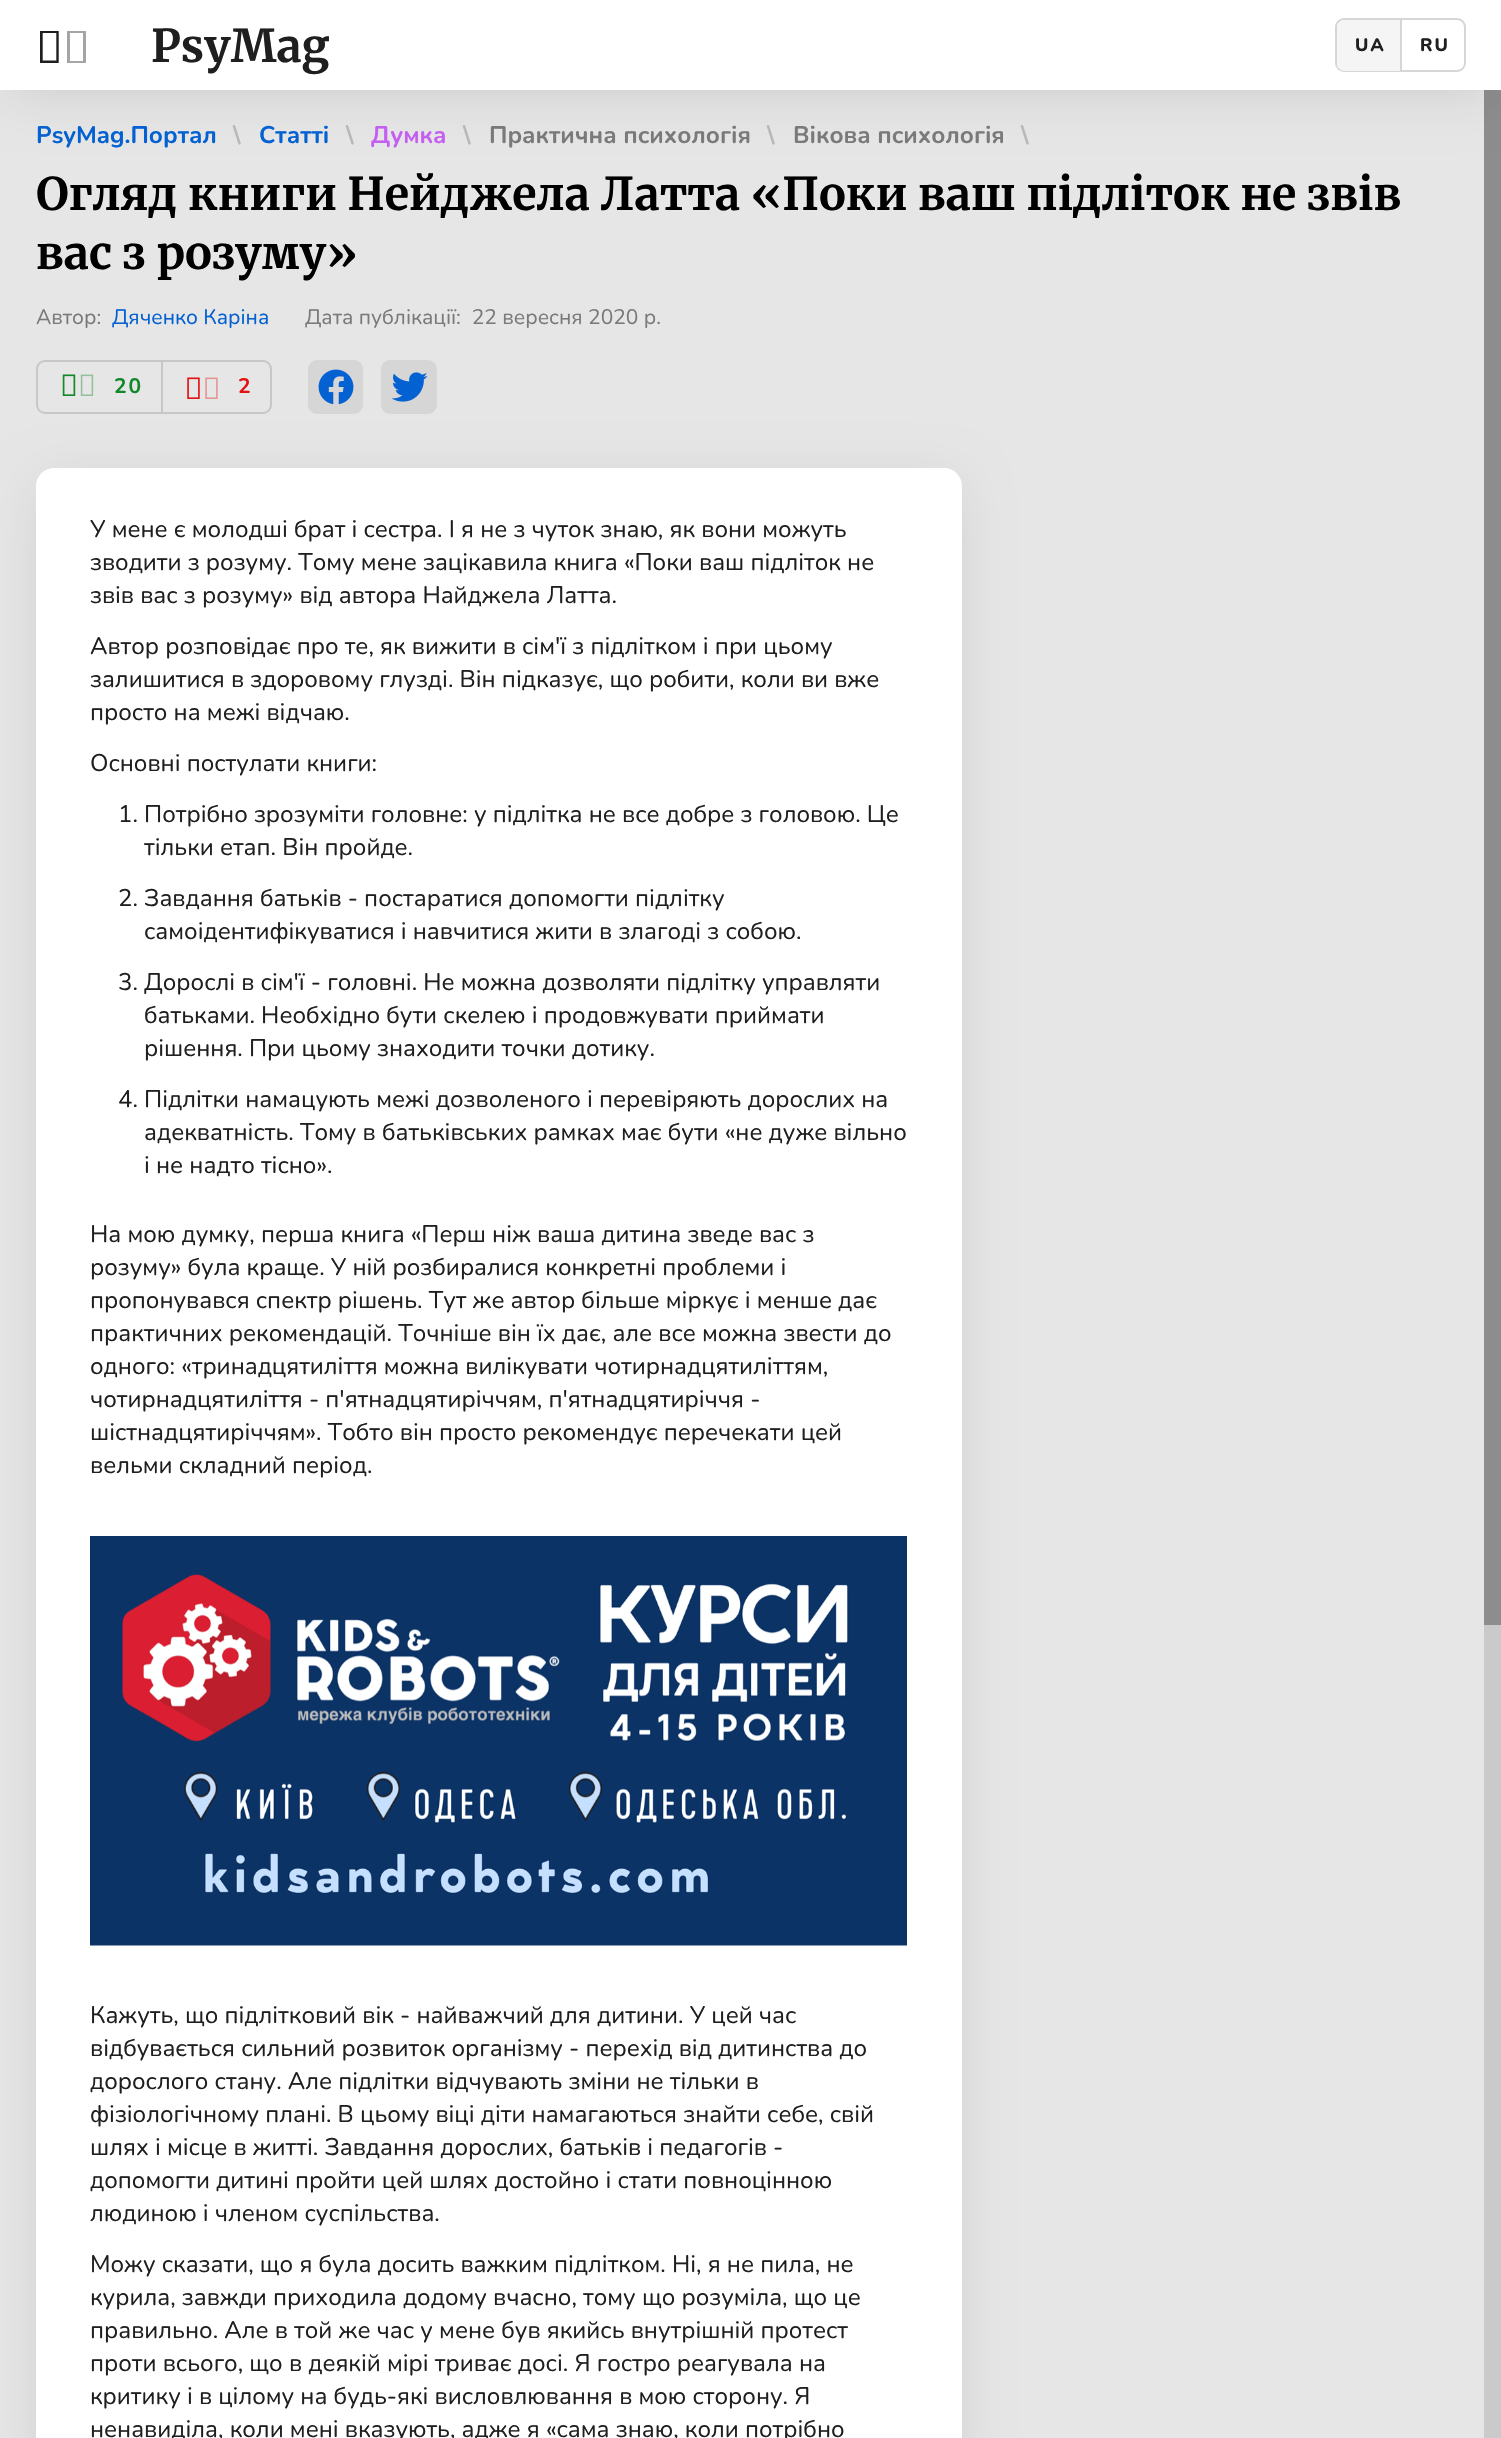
static SkFont makeFont(const char* family, int weight, float size, bool italic = false) {
  SkFontStyle style(weight, SkFontStyle::kNormal_Width,
    italic ? SkFontStyle::kItalic_Slant : SkFontStyle::kUpright_Slant);
  SkFont result(fontMgr->matchFamilyStyle(family, style), size);
  result.setSubpixel(true);
  return result;
}

static void text(SkCanvas* c, const char* s, float x, float y, const SkFont& font, SkColor color) {
  SkPaint ink(SkColor4f::FromColor(color));
  ink.setAntiAlias(true);
  c->drawString(s, x, y, font, ink);
}

static void spacedText(SkCanvas* c, const char* s, float x, float y, const SkFont& font, const SkPaint& ink, float letter, float word) {
  std::vector<SkGlyphID> glyphs(font.countText(s, strlen(s), SkTextEncoding::kUTF8));
  std::vector<float> xs(glyphs.size());
  font.textToGlyphs(s, strlen(s), SkTextEncoding::kUTF8, glyphs);
  font.getXPos(glyphs, xs, x);
  float extra = 0;
  for (size_t i = 0; i < glyphs.size(); i++) {
    xs[i] += extra;
    extra += letter + word * (glyphs[i] == font.unicharToGlyph(' '));
  }
  c->drawTextBlob(SkTextBlob::MakeFromPosHGlyphs(glyphs, xs, y, font), 0, 0, ink);
}

static void box(SkCanvas* c, float l, float t, float r, float b, SkColor color) {
  SkPaint ink(SkColor4f::FromColor(color));
  ink.setAntiAlias(true);
  c->drawRect(SkRect::MakeLTRB(l, t, r, b), ink);
}

static void roundBox(SkCanvas* c, float l, float t, float r, float b, float radius, SkColor color) {
  SkPaint ink(SkColor4f::FromColor(color));
  ink.setAntiAlias(true);
  c->drawRoundRect(SkRect::MakeLTRB(l, t, r, b), radius, radius, ink);
}

static void picture(SkCanvas* c, const char* path, float l, float t, float r, float b) {
  auto image = SkImages::DeferredFromEncodedData(SkData::MakeFromFileName(path));
  c->drawImageRect(image, SkRect::MakeLTRB(l, t, r, b), SkSamplingOptions());
}

void draw(SkCanvas* c) {
  SkPaint paint;
  paint.setAntiAlias(true);
  c->clear(0xffe6e6e6);
  paint.setColor(0x1f000000);
  paint.setMaskFilter(SkMaskFilter::MakeBlur(kNormal_SkBlurStyle, 27));
  c->drawRect(SkRect::MakeLTRB(9, 18, 1493, 90), paint);
  paint.setMaskFilter(nullptr);
  box(c, 0, 0, 1501, 90, 0xffffffff);
  paint.setColor(0xff1f1f1f);
  c->drawPath(SkPathBuilder().moveTo(40, 63).lineTo(40, 31).lineTo(58.5f, 31).lineTo(58.5f, 63).close().moveTo(42.5f, 60.5f).lineTo(56.5f, 60.5f).lineTo(56.5f, 33).lineTo(42.5f, 33).close().detach(), paint);
  paint.setColor(0x661f1f1f);
  c->drawPath(SkPathBuilder().moveTo(40, 63).lineTo(40, 31).lineTo(59, 31).lineTo(59, 63).close().moveTo(43, 61).lineTo(56, 61).lineTo(56, 33).lineTo(43, 33).close().moveTo(67, 63).lineTo(67, 31).lineTo(86, 31).lineTo(86, 63).close().moveTo(70, 61).lineTo(83, 61).lineTo(83, 33).lineTo(70, 33).close().detach(), paint);
  SkFont face1 = makeFont("Merriweather", 300, 45);
  text(c, "PsyMag", 151, 62, face1, 0xff1f1f1f);
  paint.setStyle(SkPaint::kStroke_Style);
  paint.setStrokeWidth(2);
  paint.setColor(0xffd6d6d6);
  c->drawRoundRect(SkRect::MakeLTRB(1336, 19, 1465, 71), 8, 8, paint);
  paint.setStyle(SkPaint::kFill_Style);
  paint.setColor(0xfff5f5f5);
  c->drawPath(SkPathBuilder().moveTo(1345, 20).lineTo(1401, 20).lineTo(1401, 71).lineTo(1345, 71).cubicTo(1340.5f, 71, 1337, 67.5f, 1337, 63).lineTo(1337, 28).cubicTo(1337, 23.5f, 1340.5f, 20, 1345, 20).close().detach(), paint);
  box(c, 1400, 20, 1402, 71, 0xffd6d6d6);
  SkFont face2 = makeFont("Nunito", 800, 18);
  paint.setColor(0xff1f1f1f);
  spacedText(c, "UA", 1355, 51, face2, paint, 2, 0);
  spacedText(c, "RU", 1420, 51, face2, paint, 2, 0);
  SkFont face3 = makeFont("Nunito", 700, 24);
  text(c, "PsyMag.Портал", 36, 143, face3, 0xff0461d2);
  text(c, "\\", 233, 143, face3, 0xffb8b8b8);
  text(c, "Статті", 259, 143, face3, 0xff0461d2);
  text(c, "\\", 346, 143, face3, 0xffb8b8b8);
  text(c, "Думка", 371, 143, face3, 0xffc55ff1);
  text(c, "\\", 463, 143, face3, 0xffb8b8b8);
  text(c, "Практична психологія", 489, 143, face3, 0xff7a7a7a);
  text(c, "\\", 767, 143, face3, 0xffb8b8b8);
  text(c, "Вікова психологія", 793, 143, face3, 0xff7a7a7a);
  text(c, "\\", 1021, 143, face3, 0xffb8b8b8);
  text(c, "Огляд книги Нейджела Латта «Поки ваш підліток не звів", 36, 210, face1, 0xff000000);
  text(c, "вас з розуму»", 36, 269, face1, 0xff000000);
  SkFont face4 = makeFont("Nunito", 400, 21);
  text(c, "Автор:", 36, 324, face4, 0xff7a7a7a);
  text(c, "Дяченко Каріна", 112, 324, face4, 0xff0461d2);
  text(c, "Дата публікації:  22 вересня 2020 р.", 305, 324, face4, 0xff7a7a7a);
  paint.setStyle(SkPaint::kStroke_Style);
  paint.setColor(0xffc7c7c7);
  c->drawRoundRect(SkRect::MakeLTRB(37, 361, 271, 413), 8, 8, paint);
  box(c, 161, 362, 163, 413, 0xffc7c7c7);
  picture(c, "img_01.png", 62, 374, 76, 396);
  picture(c, "img_02.png", 62, 374, 94, 396);
  SkFont face5 = makeFont("Nunito", 700, 21);
  paint.setStyle(SkPaint::kFill_Style);
  paint.setColor(0xff118829);
  spacedText(c, "20", 114, 393, face5, paint, 2, 0);
  picture(c, "img_03.png", 187, 377, 200, 399);
  picture(c, "img_04.png", 187, 377, 218, 399);
  paint.setColor(0xffe11414);
  spacedText(c, "2", 238, 393, face5, paint, 2, 0);
  roundBox(c, 308, 360, 363, 414, 9, 0xffd6d6d6);
  picture(c, "img_05.png", 318, 369, 354, 405);
  roundBox(c, 381, 360, 437, 414, 9, 0xffd6d6d6);
  picture(c, "img_06.png", 391, 372, 428, 402);
  paint.setColor(0x1f000000);
  paint.setMaskFilter(SkMaskFilter::MakeBlur(kNormal_SkBlurStyle, 27));
  c->drawRoundRect(SkRect::MakeLTRB(45, 486, 953, 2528), 9, 9, paint);
  paint.setMaskFilter(nullptr);
  paint.setColor(0xffffffff);
  c->drawPath(SkPathBuilder().moveTo(54, 468).lineTo(944, 468).cubicTo(954, 468, 962, 476, 962, 486).lineTo(962, 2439).lineTo(36, 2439).lineTo(36, 486).cubicTo(36, 476, 44, 468, 54, 468).close().detach(), paint);
  SkFont face6 = makeFont("Nunito", 400, 24);
  text(c, "У мене є молодші брат і сестра. І я не з чуток знаю, як вони можуть", 90, 537, face6, 0xff1f1f1f);
  text(c, "зводити з розуму. Тому мене зацікавила книга «Поки ваш підліток не", 90, 570, face6, 0xff1f1f1f);
  text(c, "звів вас з розуму» від автора Найджела Латта.", 90, 603, face6, 0xff1f1f1f);
  text(c, "Автор розповідає про те, як вижити в сім'ї з підлітком і при цьому", 90, 654, face6, 0xff1f1f1f);
  text(c, "залишитися в здоровому глузді. Він підказує, що робити, коли ви вже", 90, 687, face6, 0xff1f1f1f);
  text(c, "просто на межі відчаю.", 90, 720, face6, 0xff1f1f1f);
  text(c, "Основні постулати книги:", 90, 771, face6, 0xff1f1f1f);
  text(c, "1. Потрібно зрозуміти головне: у підлітка не все добре з головою. Це", 118, 822, face6, 0xff1f1f1f);
  text(c, "тільки етап. Він пройде.", 144, 855, face6, 0xff1f1f1f);
  text(c, "2. Завдання батьків - постаратися допомогти підлітку", 118, 906, face6, 0xff1f1f1f);
  text(c, "самоідентифікуватися і навчитися жити в злагоді з собою.", 144, 939, face6, 0xff1f1f1f);
  text(c, "3. Дорослі в сім'ї - головні. Не можна дозволяти підлітку управляти", 118, 990, face6, 0xff1f1f1f);
  text(c, "батьками. Необхідно бути скелею і продовжувати приймати", 144, 1023, face6, 0xff1f1f1f);
  text(c, "рішення. При цьому знаходити точки дотику.", 144, 1056, face6, 0xff1f1f1f);
  text(c, "4. Підлітки намацують межі дозволеного і перевіряють дорослих на", 118, 1107, face6, 0xff1f1f1f);
  text(c, "адекватність. Тому в батьківських рамках має бути «не дуже вільно", 144, 1140, face6, 0xff1f1f1f);
  text(c, "і не надто тісно».", 144, 1173, face6, 0xff1f1f1f);
  text(c, "На мою думку, перша книга «Перш ніж ваша дитина зведе вас з", 90, 1242, face6, 0xff1f1f1f);
  text(c, "розуму» була краще. У ній розбиралися конкретні проблеми і", 90, 1275, face6, 0xff1f1f1f);
  text(c, "пропонувався спектр рішень. Тут же автор більше міркує і менше дає", 90, 1308, face6, 0xff1f1f1f);
  text(c, "практичних рекомендацій. Точніше він їх дає, але все можна звести до", 90, 1341, face6, 0xff1f1f1f);
  text(c, "одного: «тринадцятиліття можна вилікувати чотирнадцятиліттям,", 90, 1374, face6, 0xff1f1f1f);
  text(c, "чотирнадцятиліття - п'ятнадцятиріччям, п'ятнадцятиріччя -", 90, 1407, face6, 0xff1f1f1f);
  text(c, "шістнадцятиріччям». Тобто він просто рекомендує перечекати цей", 90, 1440, face6, 0xff1f1f1f);
  text(c, "вельми складний період.", 90, 1473, face6, 0xff1f1f1f);
  picture(c, "img_07.png", 90, 1536, 907, 1946);
  text(c, "Кажуть, що підлітковий вік - найважчий для дитини. У цей час", 90, 2023, face6, 0xff1f1f1f);
  text(c, "відбувається сильний розвиток організму - перехід від дитинства до", 90, 2056, face6, 0xff1f1f1f);
  text(c, "дорослого стану. Але підлітки відчувають зміни не тільки в", 90, 2089, face6, 0xff1f1f1f);
  text(c, "фізіологічному плані. В цьому віці діти намагаються знайти себе, свій", 90, 2122, face6, 0xff1f1f1f);
  text(c, "шлях і місце в житті. Завдання дорослих, батьків і педагогів -", 90, 2155, face6, 0xff1f1f1f);
  text(c, "допомогти дитині пройти цей шлях достойно і стати повноцінною", 90, 2188, face6, 0xff1f1f1f);
  text(c, "людиною і членом суспільства.", 90, 2221, face6, 0xff1f1f1f);
  text(c, "Можу сказати, що я була досить важким підлітком. Ні, я не пила, не", 90, 2272, face6, 0xff1f1f1f);
  text(c, "курила, завжди приходила додому вчасно, тому що розуміла, що це", 90, 2305, face6, 0xff1f1f1f);
  text(c, "правильно. Але в той же час у мене був якийсь внутрішній протест", 90, 2338, face6, 0xff1f1f1f);
  text(c, "проти всього, що в деякій мірі триває досі. Я гостро реагувала на", 90, 2371, face6, 0xff1f1f1f);
  text(c, "критику і в цілому на будь-які висловлювання в мою сторону. Я", 90, 2404, face6, 0xff1f1f1f);
  text(c, "ненавиділа, коли мені вказують, адже я «сама знаю, коли потрібно", 90, 2437, face6, 0xff1f1f1f);
  box(c, 1484, 90, 1501, 2438, 0x1f000000);
  box(c, 1484, 90, 1501, 1625, 0x4d000000);
}
